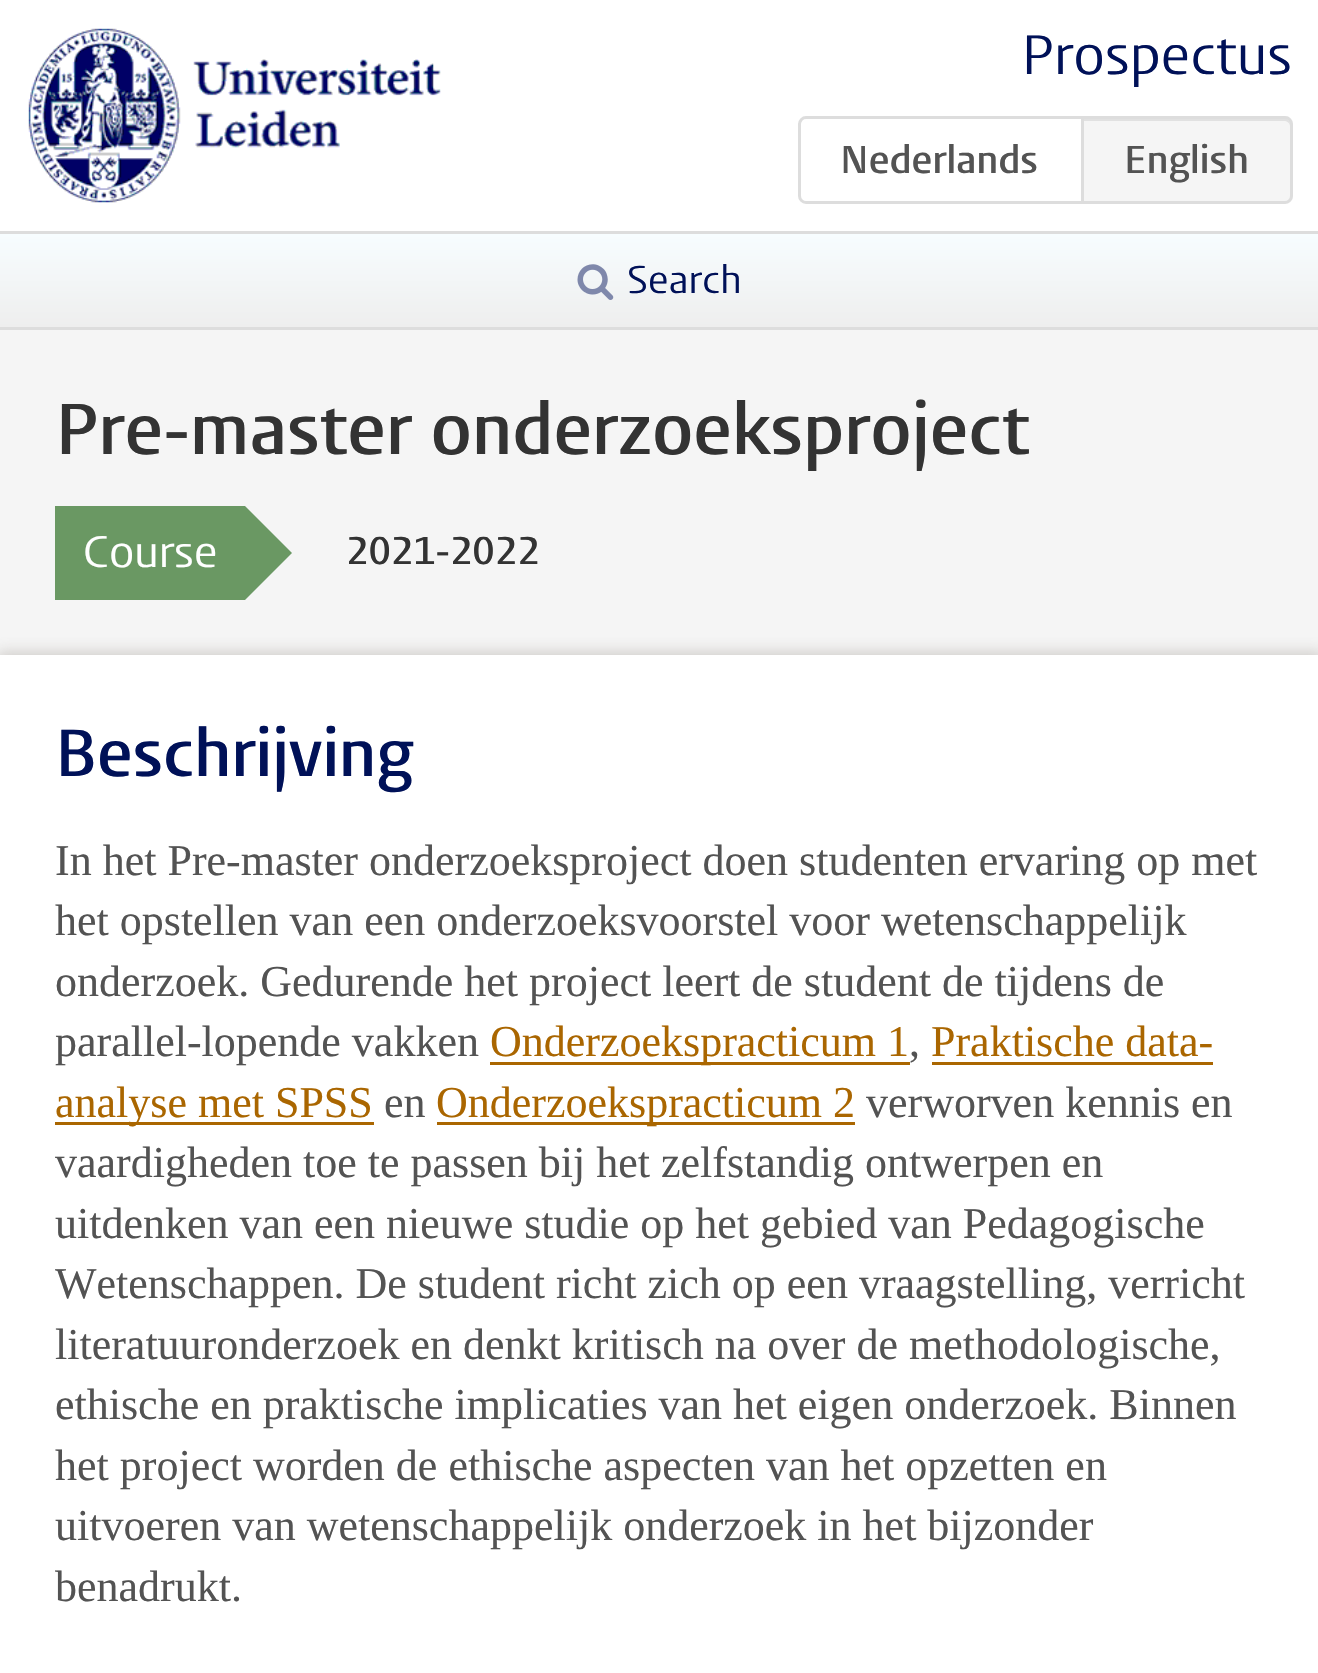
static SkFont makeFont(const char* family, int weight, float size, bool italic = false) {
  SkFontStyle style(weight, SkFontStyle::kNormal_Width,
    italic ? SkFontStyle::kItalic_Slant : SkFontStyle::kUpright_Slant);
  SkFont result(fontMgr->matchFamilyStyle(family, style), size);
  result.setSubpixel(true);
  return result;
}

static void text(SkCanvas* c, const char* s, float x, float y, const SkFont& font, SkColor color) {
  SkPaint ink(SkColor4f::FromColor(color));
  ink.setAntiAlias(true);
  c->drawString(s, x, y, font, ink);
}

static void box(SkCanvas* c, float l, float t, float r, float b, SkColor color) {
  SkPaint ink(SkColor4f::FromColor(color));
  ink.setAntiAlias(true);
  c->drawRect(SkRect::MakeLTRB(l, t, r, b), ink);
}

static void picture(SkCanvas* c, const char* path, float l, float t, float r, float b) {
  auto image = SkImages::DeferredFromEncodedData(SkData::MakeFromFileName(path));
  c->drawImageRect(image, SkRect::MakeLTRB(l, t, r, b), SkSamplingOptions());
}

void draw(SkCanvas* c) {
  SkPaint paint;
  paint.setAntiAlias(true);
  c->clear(0xfff5f5f5);
  box(c, 0, 0, 1318, 231, 0xffffffff);
  picture(c, "img_01.png", 28, 28, 441, 203);
  SkFont face1 = makeFont("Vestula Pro", 400, 55);
  text(c, "Prospectus", 1021, 74, face1, 0xff001158);
  paint.setStyle(SkPaint::kStroke_Style);
  paint.setStrokeWidth(3);
  paint.setColor(0xffdddddd);
  c->drawPath(SkPathBuilder().moveTo(806, 117.5f).lineTo(1082.5f, 117.5f).lineTo(1082.5f, 202.5f).lineTo(806, 202.5f).cubicTo(802.5f, 202.5f, 799.5f, 199.5f, 799.5f, 196).lineTo(799.5f, 124).cubicTo(799.5f, 120.5f, 802.5f, 117.5f, 806, 117.5f).close().detach(), paint);
  SkFont face2 = makeFont("Vestula Pro", 600, 38.5f);
  text(c, "Nederlands", 840, 173, face2, 0xff535353);
  paint.setStyle(SkPaint::kFill_Style);
  paint.setColor(0xfff5f5f5);
  c->drawPath(SkPathBuilder().moveTo(1081, 116).lineTo(1285, 116).cubicTo(1289.5f, 116, 1293, 119.5f, 1293, 124).lineTo(1293, 196).cubicTo(1293, 200.5f, 1289.5f, 204, 1285, 204).lineTo(1081, 204).close().detach(), paint);
  paint.setColor(0xffe1e1e1);
  c->drawPath(SkPathBuilder().moveTo(1084, 121).lineTo(1284, 121).cubicTo(1287, 121, 1290, 123, 1290, 126).lineTo(1290, 124).cubicTo(1290, 121, 1287, 118, 1284, 118).lineTo(1084, 118).close().detach(), paint);
  paint.setStyle(SkPaint::kStroke_Style);
  paint.setColor(0xffdddddd);
  c->drawPath(SkPathBuilder().moveTo(1082.5f, 117.5f).lineTo(1285, 117.5f).cubicTo(1288.5f, 117.5f, 1291.5f, 120.5f, 1291.5f, 124).lineTo(1291.5f, 196).cubicTo(1291.5f, 199.5f, 1288.5f, 202.5f, 1285, 202.5f).lineTo(1082.5f, 202.5f).close().detach(), paint);
  text(c, "English", 1124, 173, face2, 0xff535353);
  paint.setStyle(SkPaint::kFill_Style);
  {
    const SkColor colors[] = {0xffeeeeee, 0xfff7fdff};
    const float stops[] = {0, 1};
    const SkPoint ends[] = {{660, 327}, {660, 234}};
    paint.setShader(SkGradientShader::MakeLinear(ends, colors, stops, 2, SkTileMode::kClamp));
    paint.setAlpha(255);
  }
  c->drawRect(SkRect::MakeLTRB(0, 234, 1318, 327), paint);
  box(c, 0, 231, 1318, 234, 0xffdddddd);
  box(c, 0, 327, 1318, 330, 0xffdddddd);
  picture(c, "img_02.png", 577, 264, 614, 300);
  SkFont face3 = makeFont("Vestula Pro", 400, 38.5f);
  text(c, "Search", 627, 293, face3, 0xff001158);
  SkFont face4 = makeFont("Vestula Pro", 600, 71.5f);
  text(c, "Pre-master onderzoeksproject", 55, 454, face4, 0xff333333);
  box(c, 55, 506, 245, 600, 0xff6a9863);
  SkFont face5 = makeFont("Vestula Pro", 400, 44);
  text(c, "Course", 83, 567, face5, 0xffffffff);
  paint.setShader(nullptr);
  paint.setColor(0xff6a9863);
  c->drawPath(SkPathBuilder().moveTo(245, 600).lineTo(245, 506).lineTo(292, 553).close().detach(), paint);
  text(c, "2021-2022", 346, 564, face2, 0xff333333);
  paint.setColor(0x4d786e64);
  paint.setMaskFilter(SkMaskFilter::MakeBlur(kNormal_SkBlurStyle, 7));
  c->drawRect(SkRect::MakeLTRB(-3, 652, 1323, 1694), paint);
  paint.setMaskFilter(nullptr);
  box(c, 0, 655, 1318, 1673, 0xffffffff);
  SkFont face6 = makeFont("Vestula Pro", 600, 66);
  text(c, "Beschrijving", 55, 776, face6, 0xff001158);
  SkFont face7 = makeFont("Liberation Serif", 400, 44);
  text(c, "In het Pre-master onderzoeksproject doen studenten ervaring op met", 55, 875, face7, 0xff535353);
  text(c, "het opstellen van een onderzoeksvoorstel voor wetenschappelijk", 55, 935, face7, 0xff535353);
  text(c, "onderzoek. Gedurende het project leert de student de tijdens de", 55, 996, face7, 0xff535353);
  text(c, "parallel-lopende vakken", 55, 1056, face7, 0xff535353);
  box(c, 490, 1062, 910, 1065, 0xffaa6600);
  text(c, "Onderzoekspracticum 1", 490, 1056, face7, 0xffaa6600);
  text(c, ",", 909, 1056, face7, 0xff535353);
  text(c, "Praktische data-", 931, 1056, face7, 0xffaa6600);
  box(c, 932, 1062, 1213, 1065, 0xffaa6600);
  box(c, 55, 1122, 374, 1125, 0xffaa6600);
  text(c, "analyse met SPSS", 55, 1117, face7, 0xffaa6600);
  text(c, "en", 384, 1117, face7, 0xff535353);
  box(c, 437, 1122, 855, 1125, 0xffaa6600);
  text(c, "Onderzoekspracticum 2", 436, 1117, face7, 0xffaa6600);
  text(c, "verworven kennis en", 866, 1117, face7, 0xff535353);
  text(c, "vaardigheden toe te passen bij het zelfstandig ontwerpen en", 55, 1177, face7, 0xff535353);
  text(c, "uitdenken van een nieuwe studie op het gebied van Pedagogische", 55, 1238, face7, 0xff535353);
  text(c, "Wetenschappen. De student richt zich op een vraagstelling, verricht", 55, 1298, face7, 0xff535353);
  text(c, "literatuuronderzoek en denkt kritisch na over de methodologische,", 55, 1359, face7, 0xff535353);
  text(c, "ethische en praktische implicaties van het eigen onderzoek. Binnen", 55, 1419, face7, 0xff535353);
  text(c, "het project worden de ethische aspecten van het opzetten en", 55, 1480, face7, 0xff535353);
  text(c, "uitvoeren van wetenschappelijk onderzoek in het bijzonder", 55, 1540, face7, 0xff535353);
  text(c, "benadrukt.", 55, 1601, face7, 0xff535353);
}
